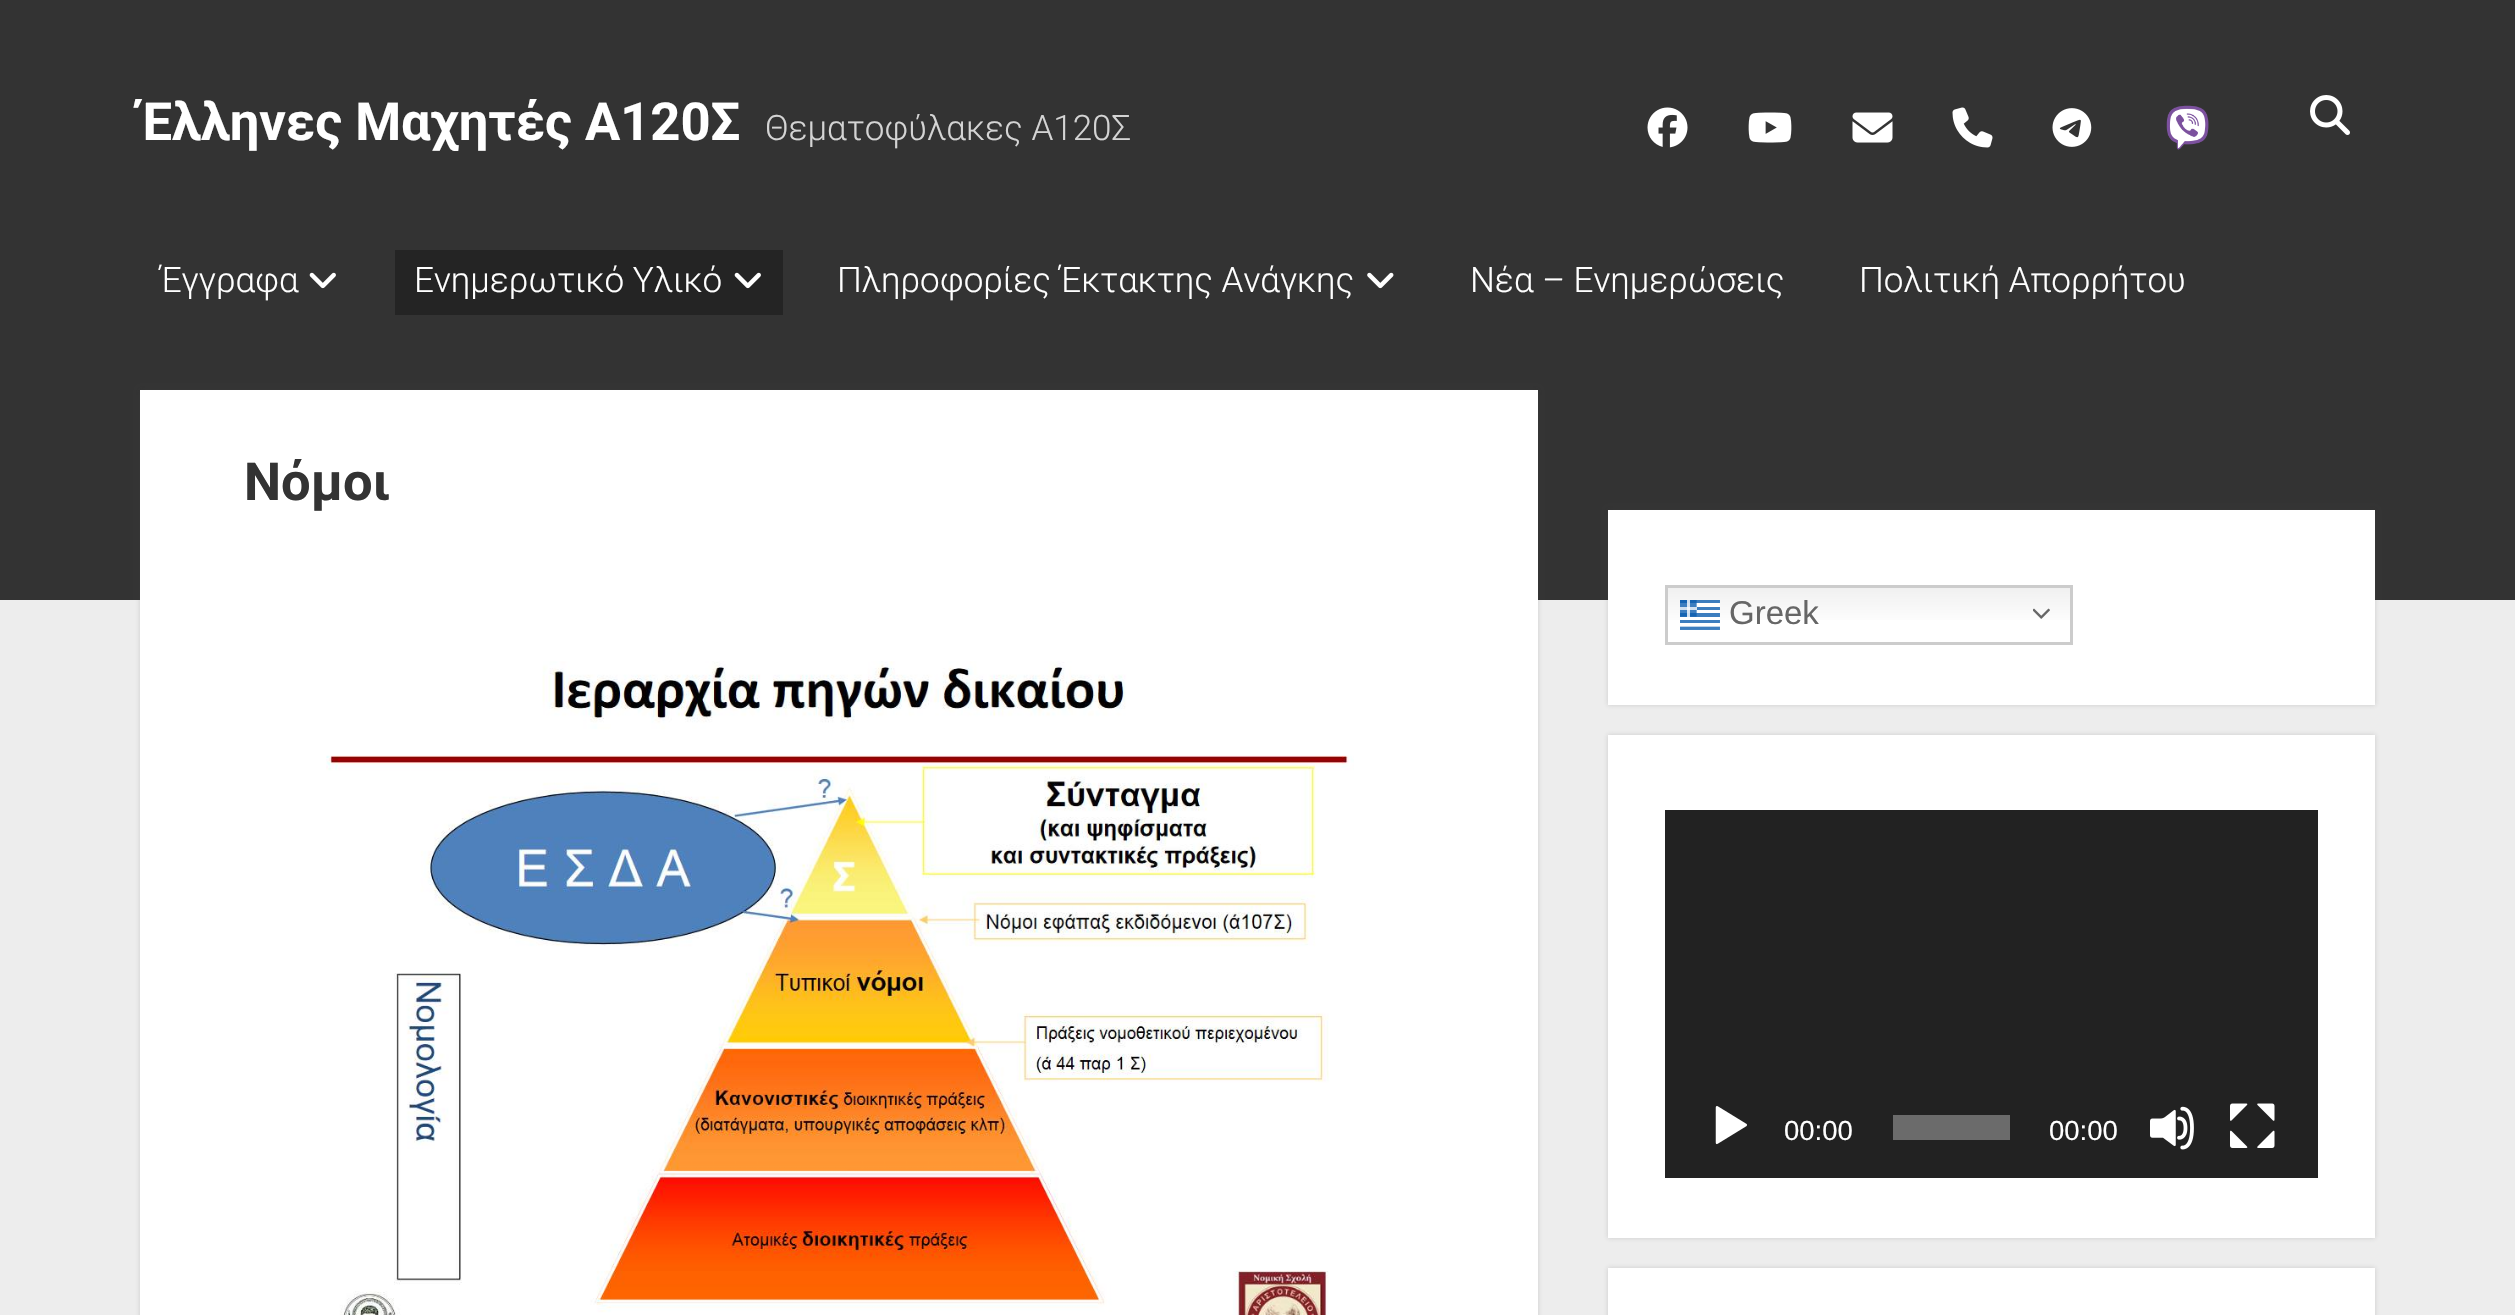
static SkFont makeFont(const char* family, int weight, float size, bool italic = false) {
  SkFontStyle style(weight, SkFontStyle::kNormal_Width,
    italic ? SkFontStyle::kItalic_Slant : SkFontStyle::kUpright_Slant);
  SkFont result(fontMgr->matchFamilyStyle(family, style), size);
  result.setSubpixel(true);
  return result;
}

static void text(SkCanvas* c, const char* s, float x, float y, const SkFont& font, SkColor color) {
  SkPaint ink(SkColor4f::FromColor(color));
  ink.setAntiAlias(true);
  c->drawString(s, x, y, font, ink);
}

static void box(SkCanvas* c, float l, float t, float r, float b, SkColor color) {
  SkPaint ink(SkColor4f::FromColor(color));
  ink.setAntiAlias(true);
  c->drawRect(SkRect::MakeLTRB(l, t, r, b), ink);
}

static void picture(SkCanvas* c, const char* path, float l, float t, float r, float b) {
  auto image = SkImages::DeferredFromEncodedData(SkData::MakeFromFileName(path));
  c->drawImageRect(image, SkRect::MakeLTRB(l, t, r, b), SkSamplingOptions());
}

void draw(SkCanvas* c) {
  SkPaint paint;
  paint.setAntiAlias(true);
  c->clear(0xffededed);
  box(c, 0, 0, 2515, 600, 0xff333333);
  SkFont face1 = makeFont("Roboto", 700, 52.5f);
  text(c, "Έλληνες Μαχητές Α120Σ", 140, 140, face1, 0xffffffff);
  SkFont face2 = makeFont("Roboto", 300, 35);
  text(c, "Θεματοφύλακες Α120Σ", 765, 140, face2, 0xffd4d4d4);
  picture(c, "img_01.png", 1647, 107, 1688, 148);
  picture(c, "img_02.png", 1748, 112, 1792, 143);
  picture(c, "img_03.png", 1852, 112, 1893, 143);
  picture(c, "img_04.png", 1952, 107, 1993, 148);
  picture(c, "img_05.png", 2052, 108, 2092, 147);
  picture(c, "img_06.png", 2166, 105, 2209, 150);
  picture(c, "img_07.png", 2310, 95, 2350, 135);
  text(c, "Έγγραφα", 160, 292, face2, 0xffffffff);
  picture(c, "img_08.png", 309, 272, 336, 289);
  box(c, 395, 250, 783, 315, 0xff242424);
  text(c, "Ενημερωτικό Υλικό", 414, 292, face2, 0xffffffff);
  picture(c, "img_09.png", 734, 272, 761, 289);
  text(c, "Πληροφορίες Έκτακτης Ανάγκης", 837, 292, face2, 0xffffffff);
  picture(c, "img_10.png", 1367, 272, 1394, 289);
  text(c, "Νέα – Ενημερώσεις", 1470, 292, face2, 0xffffffff);
  text(c, "Πολιτική Απορρήτου", 1859, 292, face2, 0xffffffff);
  paint.setColor(0x333a3a3a);
  paint.setMaskFilter(SkMaskFilter::MakeBlur(kNormal_SkBlurStyle, 2.5f));
  c->drawRect(SkRect::MakeLTRB(140, 390, 1538, 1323), paint);
  paint.setMaskFilter(nullptr);
  box(c, 140, 390, 1538, 1315, 0xffffffff);
  text(c, "Νόμοι", 244, 500, face1, 0xff333333);
  picture(c, "img_11.png", 326, 661, 1354, 1315);
  paint.setMaskFilter(SkMaskFilter::MakeBlur(kNormal_SkBlurStyle, 2.5f));
  c->drawRect(SkRect::MakeLTRB(1608, 510, 2375, 705), paint);
  paint.setMaskFilter(nullptr);
  box(c, 1608, 510, 2375, 705, 0xffffffff);
  {
    const SkColor colors[] = {0xffefefef, 0xffffffff};
    const float stops[] = {0, 0.7f};
    const SkPoint ends[] = {{1869, 585}, {1869, 645}};
    paint.setShader(SkGradientShader::MakeLinear(ends, colors, stops, 2, SkTileMode::kClamp));
    paint.setAlpha(255);
  }
  c->drawRect(SkRect::MakeLTRB(1668, 588, 2070, 620), paint);
  paint.setStyle(SkPaint::kStroke_Style);
  paint.setStrokeWidth(3);
  paint.setShader(nullptr);
  paint.setColor(0xffcccccc);
  c->drawRect(SkRect::MakeLTRB(1666.5f, 586.5f, 2071.5f, 643.5f), paint);
  picture(c, "img_12.png", 1680, 600, 1720, 630);
  SkFont face3 = makeFont("Liberation Sans", 400, 33);
  text(c, "Greek", 1729, 624, face3, 0xff666666);
  picture(c, "img_13.png", 2033, 608, 2050, 619);
  paint.setStyle(SkPaint::kFill_Style);
  paint.setColor(0x333a3a3a);
  paint.setMaskFilter(SkMaskFilter::MakeBlur(kNormal_SkBlurStyle, 2.5f));
  c->drawRect(SkRect::MakeLTRB(1608, 735, 2375, 1238), paint);
  paint.setMaskFilter(nullptr);
  box(c, 1608, 735, 2375, 1238, 0xffffffff);
  box(c, 1665, 810, 2318, 1178, 0xff222222);
  picture(c, "img_14.png", 1715, 1106, 1747, 1145);
  SkFont face4 = makeFont("Liberation Sans", 400, 27.5f);
  text(c, "00:00", 1784, 1140, face4, 0xffffffff);
  box(c, 1893, 1115, 2010, 1140, 0xff6b6b6b);
  text(c, "00:00", 2049, 1140, face4, 0xffffffff);
  picture(c, "img_15.png", 2150, 1106, 2194, 1150);
  picture(c, "img_16.png", 2230, 1103, 2275, 1148);
  paint.setMaskFilter(SkMaskFilter::MakeBlur(kNormal_SkBlurStyle, 2.5f));
  c->drawRect(SkRect::MakeLTRB(1608, 1268, 2375, 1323), paint);
  paint.setMaskFilter(nullptr);
  box(c, 1608, 1268, 2375, 1315, 0xffffffff);
}
